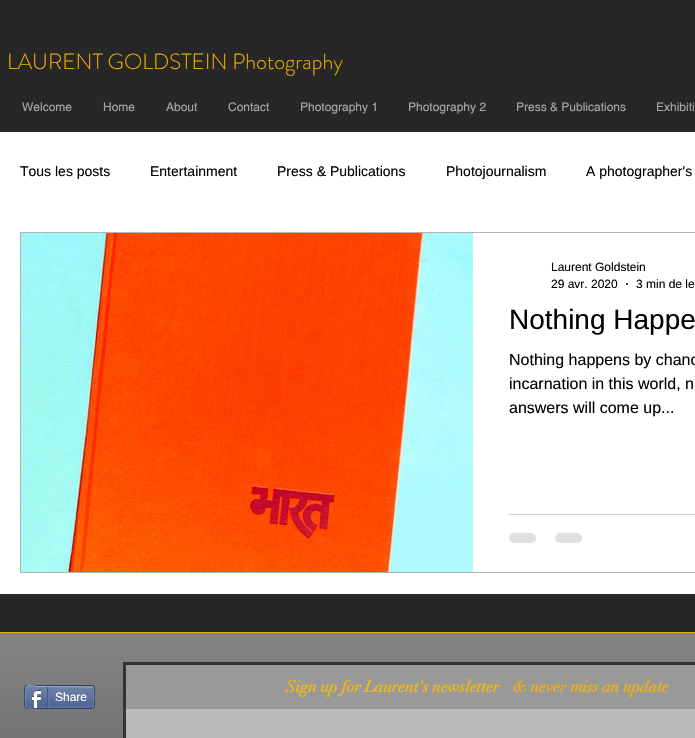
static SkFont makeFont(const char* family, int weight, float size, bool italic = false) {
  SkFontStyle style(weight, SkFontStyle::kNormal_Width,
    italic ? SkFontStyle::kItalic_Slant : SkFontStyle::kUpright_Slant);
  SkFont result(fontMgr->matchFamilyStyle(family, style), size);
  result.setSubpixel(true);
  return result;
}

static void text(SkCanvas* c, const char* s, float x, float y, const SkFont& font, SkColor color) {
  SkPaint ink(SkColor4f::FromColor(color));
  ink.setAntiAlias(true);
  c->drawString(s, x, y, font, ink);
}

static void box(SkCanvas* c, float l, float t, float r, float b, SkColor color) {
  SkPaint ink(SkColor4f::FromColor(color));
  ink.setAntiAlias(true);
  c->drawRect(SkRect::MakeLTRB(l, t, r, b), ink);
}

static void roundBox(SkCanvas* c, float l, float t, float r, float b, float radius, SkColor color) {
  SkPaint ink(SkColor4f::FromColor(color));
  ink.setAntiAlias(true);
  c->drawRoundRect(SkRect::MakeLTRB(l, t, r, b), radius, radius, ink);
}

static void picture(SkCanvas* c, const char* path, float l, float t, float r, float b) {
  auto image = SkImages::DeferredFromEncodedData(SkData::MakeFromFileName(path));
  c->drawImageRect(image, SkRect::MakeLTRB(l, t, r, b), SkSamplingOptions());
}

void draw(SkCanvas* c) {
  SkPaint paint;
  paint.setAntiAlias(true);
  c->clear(0xff272727);
  SkFont face1 = makeFont("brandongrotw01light", 300, 22);
  text(c, "LAURENT GOLDSTEIN Photography", 7, 69, face1, 0xffeaa904);
  SkFont face2 = makeFont("helvetica", 400, 12);
  text(c, "Welcome", 22, 111, face2, 0xffa6a6a6);
  text(c, "Home", 103, 111, face2, 0xffa6a6a6);
  text(c, "About", 166, 111, face2, 0xffa6a6a6);
  text(c, "Contact", 228, 111, face2, 0xffa6a6a6);
  text(c, "Photography 1", 300, 111, face2, 0xffa6a6a6);
  text(c, "Photography 2", 408, 111, face2, 0xffa6a6a6);
  text(c, "Press & Publications", 516, 111, face2, 0xffa6a6a6);
  text(c, "Exhibiti", 656, 111, face2, 0xffa6a6a6);
  box(c, 0, 132, 695, 594, 0xffffffff);
  SkFont face3 = makeFont("Liberation Sans", 400, 14);
  text(c, "Tous les posts", 20, 176, face3, 0xff000000);
  text(c, "Entertainment", 150, 176, face3, 0xff000000);
  text(c, "Press & Publications", 277, 176, face3, 0xff000000);
  text(c, "Photojournalism", 446, 176, face3, 0xff000000);
  text(c, "A photographer's", 586, 176, face3, 0xff000000);
  paint.setStyle(SkPaint::kStroke_Style);
  paint.setStrokeWidth(1);
  paint.setColor(0xffb3b3b3);
  c->drawRect(SkRect::MakeLTRB(20.5f, 232.5f, 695.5f, 572.5f), paint);
  picture(c, "img_01.png", 21, 233, 473, 572);
  SkFont face4 = makeFont("Liberation Sans", 400, 12);
  text(c, "Laurent Goldstein", 551, 271, face4, 0xff000000);
  text(c, "29 avr. 2020", 551, 288, face4, 0xff000000);
  paint.setStyle(SkPaint::kFill_Style);
  paint.setColor(0xff000000);
  c->drawCircle(627, 284, 1, paint);
  text(c, "3 min de le", 636, 288, face4, 0xff000000);
  SkFont face5 = makeFont("Liberation Sans", 400, 28);
  text(c, "Nothing Happe", 509, 329, face5, 0xff000000);
  SkFont face6 = makeFont("Liberation Sans", 400, 16);
  text(c, "Nothing happens by chanc", 509, 365, face6, 0xff000000);
  text(c, "incarnation in this world, n", 509, 389, face6, 0xff000000);
  text(c, "answers will come up...", 509, 413, face6, 0xff000000);
  box(c, 509, 514, 695, 515, 0xffcccccc);
  roundBox(c, 509, 533, 536, 543, 5, 0xffe0e0e0);
  roundBox(c, 555, 533, 582, 543, 5, 0xffe0e0e0);
  box(c, 0, 633, 695, 738, 0xff5a5a5a);
  picture(c, "img_02.png", 0, 633, 695, 738);
  box(c, 0, 632, 695, 633, 0xffeaa904);
  paint.setStyle(SkPaint::kStroke_Style);
  paint.setColor(0xff2d4565);
  c->drawRoundRect(SkRect::MakeLTRB(24.5f, 685.5f, 94.5f, 708.5f), 2.5f, 2.5f, paint);
  picture(c, "img_03.png", 25, 687, 94, 708);
  paint.setColor(0xff9aabc6);
  c->drawPath(SkPathBuilder().moveTo(26, 687).cubicTo(29, 684, 34, 686.5f, 38, 686.5f).lineTo(93, 687).detach(), paint);
  paint.setColor(0xff6f83ad);
  c->drawPath(SkPathBuilder().moveTo(93, 687).cubicTo(94, 687.5f, 94, 706.5f, 93, 707).detach(), paint);
  paint.setColor(0xff6176a3);
  c->drawPath(SkPathBuilder().moveTo(93, 707).lineTo(38, 707.5f).cubicTo(34, 707.5f, 29, 710, 26, 707).detach(), paint);
  paint.setColor(0xff6f83ad);
  c->drawPath(SkPathBuilder().moveTo(26, 707).cubicTo(25, 706.5f, 25, 687.5f, 26, 687).detach(), paint);
  picture(c, "img_04.png", 31, 690, 41, 708);
  box(c, 47, 687, 48, 708, 0xff425e85);
  text(c, "Share", 55, 701, face4, 0xffffffff);
  box(c, 48, 687, 49, 707, 0xff6176a3);
  box(c, 126, 709, 695, 738, 0x7dffffff);
  paint.setStrokeWidth(3);
  paint.setColor(0xff333333);
  c->drawRect(SkRect::MakeLTRB(124.5f, 663.5f, 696.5f, 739.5f), paint);
  box(c, 126, 665, 695, 709, 0xff999999);
  SkFont face7 = makeFont("didot", 700, 16);
  text(c, "Sign up for Laurent's newsletter", 286, 692, face7, 0xfff2b811);
  text(c, "& never miss an update", 513, 692, face7, 0xfff0b00e);
}
